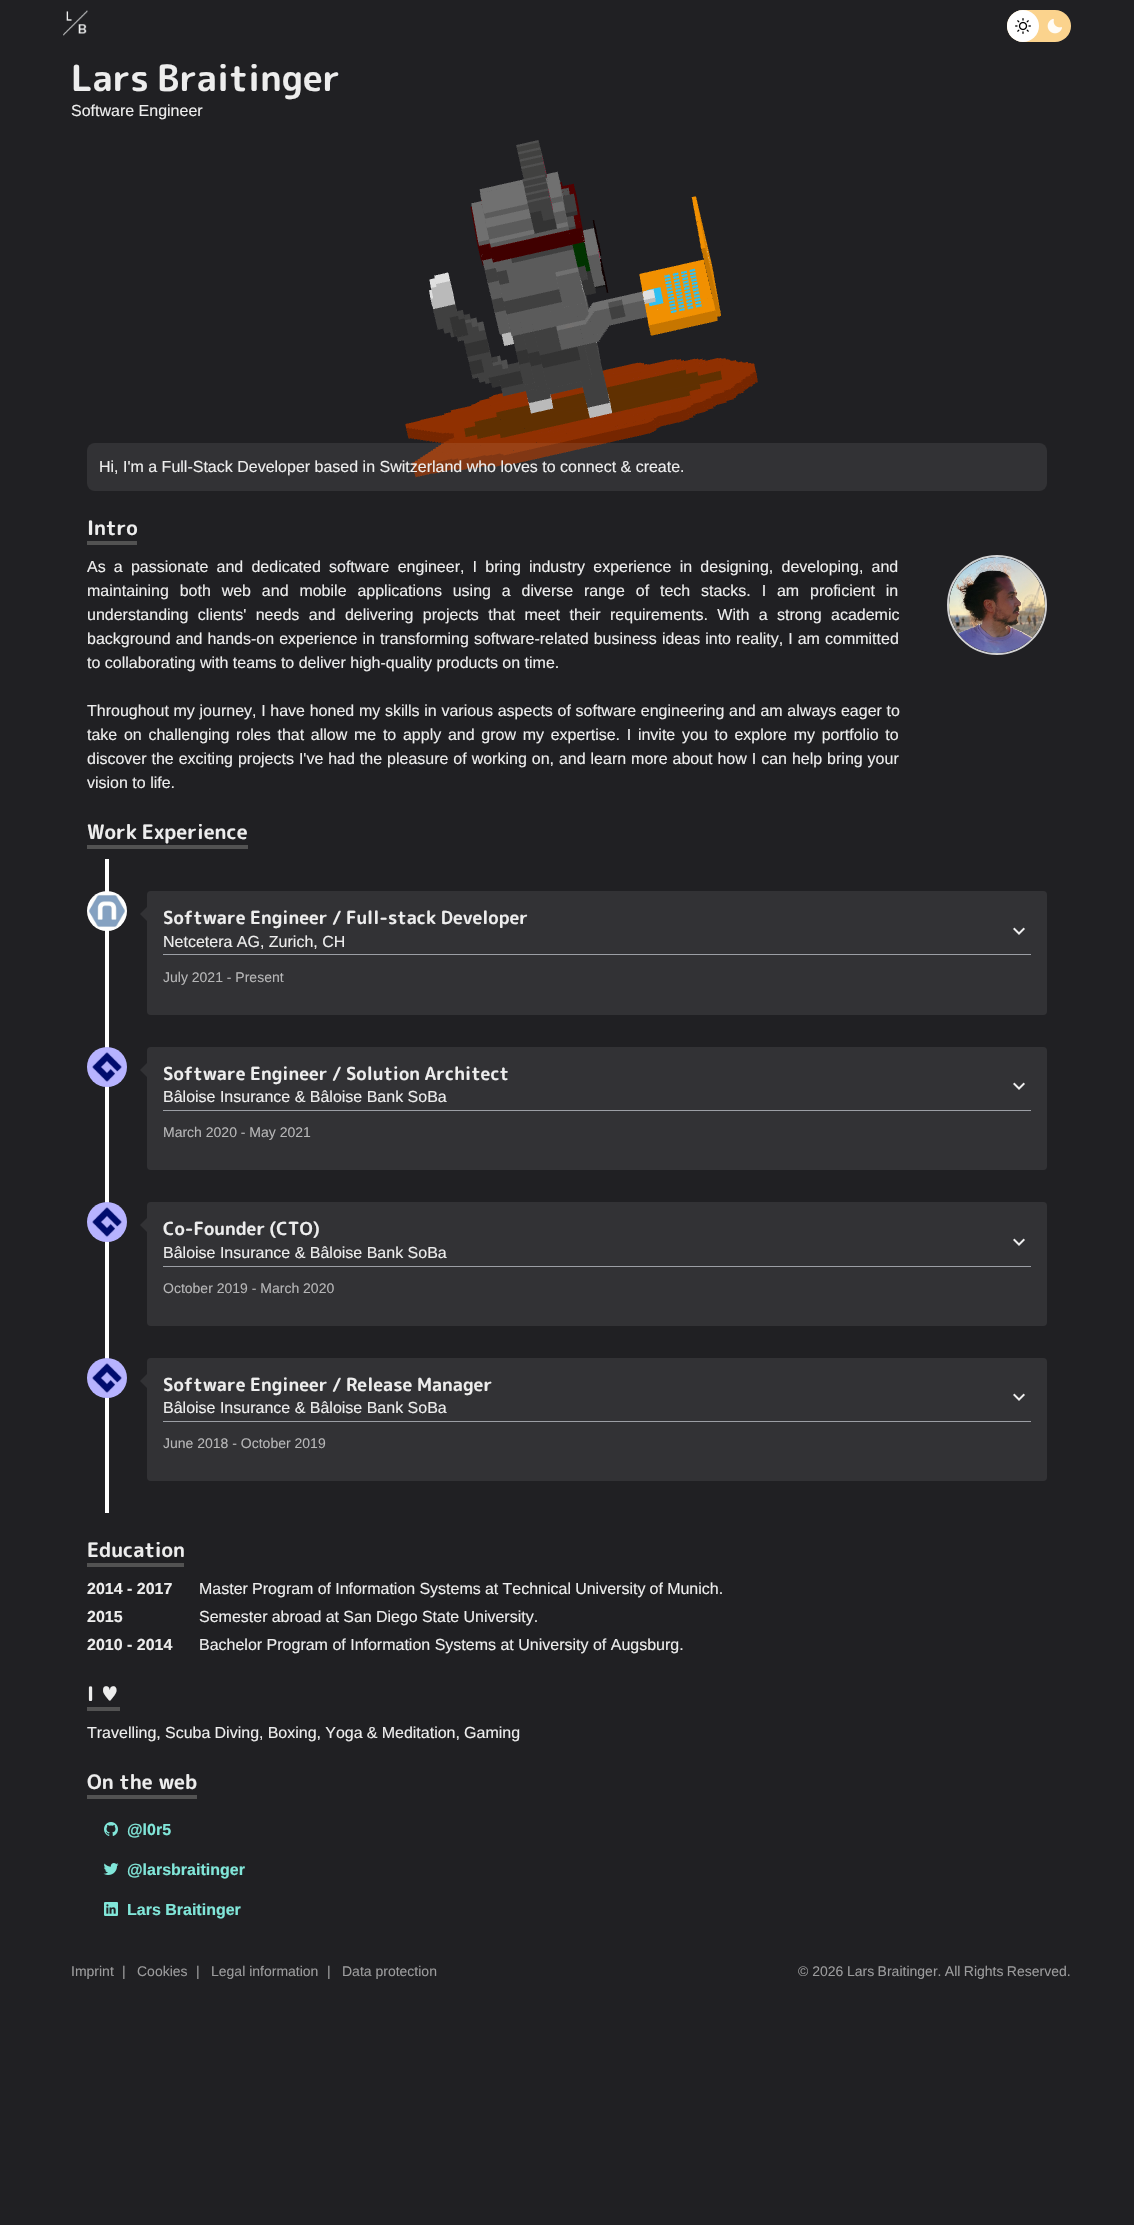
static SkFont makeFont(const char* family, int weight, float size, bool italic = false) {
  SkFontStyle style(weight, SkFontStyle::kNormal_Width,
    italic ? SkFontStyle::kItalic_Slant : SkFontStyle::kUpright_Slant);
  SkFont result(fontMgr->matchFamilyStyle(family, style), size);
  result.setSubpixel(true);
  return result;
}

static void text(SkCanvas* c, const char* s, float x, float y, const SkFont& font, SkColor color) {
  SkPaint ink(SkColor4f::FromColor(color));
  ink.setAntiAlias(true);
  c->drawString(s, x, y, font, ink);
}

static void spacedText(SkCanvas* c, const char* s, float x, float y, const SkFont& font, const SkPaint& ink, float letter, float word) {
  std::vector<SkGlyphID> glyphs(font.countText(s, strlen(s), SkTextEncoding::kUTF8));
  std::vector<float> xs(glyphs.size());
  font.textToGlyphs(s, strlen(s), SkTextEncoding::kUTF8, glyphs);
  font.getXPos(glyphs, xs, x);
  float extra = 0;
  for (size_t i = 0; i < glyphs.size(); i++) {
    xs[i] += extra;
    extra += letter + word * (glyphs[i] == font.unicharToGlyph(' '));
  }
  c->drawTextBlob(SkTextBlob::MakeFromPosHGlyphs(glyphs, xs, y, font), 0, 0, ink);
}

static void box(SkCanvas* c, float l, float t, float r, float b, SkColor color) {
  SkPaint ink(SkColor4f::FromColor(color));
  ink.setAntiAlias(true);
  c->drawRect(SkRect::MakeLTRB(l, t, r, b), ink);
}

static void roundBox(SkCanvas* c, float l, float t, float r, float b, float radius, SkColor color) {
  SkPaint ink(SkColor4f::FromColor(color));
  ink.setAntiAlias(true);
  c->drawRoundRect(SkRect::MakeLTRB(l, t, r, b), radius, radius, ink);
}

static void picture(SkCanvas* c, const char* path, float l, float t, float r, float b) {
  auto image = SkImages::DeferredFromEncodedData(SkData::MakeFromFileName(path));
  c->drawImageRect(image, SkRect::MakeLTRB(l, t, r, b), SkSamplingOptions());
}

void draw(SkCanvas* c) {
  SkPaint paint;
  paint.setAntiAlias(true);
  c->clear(0xff202023);
  picture(c, "img_01.png", 63, 10, 88, 36);
  roundBox(c, 1007, 10, 1071, 42, 16, 0xfffbd38d);
  paint.setColor(0xffffffff);
  c->drawCircle(1023, 26, 16, paint);
  picture(c, "img_02.png", 1015, 18, 1031, 34);
  picture(c, "img_03.png", 1047, 18, 1062, 34);
  SkFont face1 = makeFont("Rounded Mplus 1c Bold", 700, 36);
  paint.setColor(0xffededed);
  spacedText(c, "Lars Braitinger", 71, 91, face1, paint, 0, -2);
  SkFont face2 = makeFont("Liberation Sans", 400, 16);
  text(c, "Software Engineer", 71, 116, face2, 0xffededed);
  picture(c, "img_04.png", 405, 140, 758, 478);
  roundBox(c, 87, 443, 1047, 491, 8, 0x14ffffff);
  text(c, "Hi, I'm a Full-Stack Developer based in Switzerland who loves to connect & create.", 99, 472, face2, 0xffededed);
  SkFont face3 = makeFont("Rounded Mplus 1c Bold", 700, 20);
  text(c, "Intro", 87, 535, face3, 0xffededed);
  box(c, 87, 541, 137, 545, 0xff525252);
  spacedText(c, "As a passionate and dedicated software engineer, I bring industry experience in designing, developing, and", 87, 572, face2, paint, 0, 3.75f);
  spacedText(c, "maintaining both web and mobile applications using a diverse range of tech stacks. I am proficient in", 87, 596, face2, paint, 0, 6.4f);
  spacedText(c, "understanding clients' needs and delivering projects that meet their requirements. With a strong academic", 87, 620, face2, paint, 0, 5);
  spacedText(c, "background and hands-on experience in transforming software-related business ideas into reality, I am committed", 87, 644, face2, paint, 0, 0.6f);
  text(c, "to collaborating with teams to deliver high-quality products on time.", 87, 668, face2, 0xffededed);
  spacedText(c, "Throughout my journey, I have honed my skills in various aspects of software engineering and am always eager to", 87, 716, face2, paint, 0, 0.25f);
  spacedText(c, "take on challenging roles that allow me to apply and grow my expertise. I invite you to explore my portfolio to", 87, 740, face2, paint, 0, 2.25f);
  spacedText(c, "discover the exciting projects I've had the pleasure of working on, and learn more about how I can help bring your", 87, 764, face2, paint, 0, 0.5f);
  text(c, "vision to life.", 87, 788, face2, 0xffededed);
  paint.setStyle(SkPaint::kStroke_Style);
  paint.setStrokeWidth(2);
  paint.setColor(0xffd2d2d3);
  c->drawCircle(997, 605, 49, paint);
  picture(c, "img_05.png", 949, 557, 1045, 653);
  paint.setStyle(SkPaint::kFill_Style);
  paint.setColor(0xffededed);
  spacedText(c, "Work Experience", 87, 839, face3, paint, 0, -1);
  box(c, 87, 845, 248, 849, 0xff525252);
  box(c, 105, 859, 109, 1513, 0xffffffff);
  picture(c, "img_06.png", 87, 891, 127, 931);
  roundBox(c, 147, 891, 1047, 1015, 4, 0xff323235);
  paint.setColor(0xff323235);
  c->drawPath(SkPathBuilder().moveTo(147, 907).lineTo(147, 921).lineTo(140, 914).close().detach(), paint);
  SkFont face4 = makeFont("Rounded Mplus 1c Bold", 700, 18);
  paint.setColor(0xffededed);
  spacedText(c, "Software Engineer / Full-stack Developer", 163, 924, face4, paint, 0, -0.5f);
  text(c, "Netcetera AG, Zurich, CH", 163, 947, face2, 0xffededed);
  picture(c, "img_07.png", 1013, 927, 1025, 935);
  box(c, 163, 954, 1031, 955, 0xff9c9fa5);
  SkFont face5 = makeFont("Liberation Sans", 400, 14);
  text(c, "July 2021 - Present", 163, 982, face5, 0xffb6b6b7);
  picture(c, "img_08.png", 87, 1047, 127, 1087);
  roundBox(c, 147, 1047, 1047, 1170, 4, 0xff323235);
  paint.setColor(0xff323235);
  c->drawPath(SkPathBuilder().moveTo(147, 1063).lineTo(147, 1077).lineTo(140, 1070).close().detach(), paint);
  paint.setColor(0xffededed);
  spacedText(c, "Software Engineer / Solution Architect", 163, 1080, face4, paint, 0, -0.5f);
  text(c, "Bâloise Insurance & Bâloise Bank SoBa", 163, 1102, face2, 0xffededed);
  picture(c, "img_07.png", 1013, 1082, 1025, 1090);
  box(c, 163, 1110, 1031, 1111, 0xff9c9fa5);
  text(c, "March 2020 - May 2021", 163, 1137, face5, 0xffb6b6b7);
  picture(c, "img_08.png", 87, 1202, 127, 1242);
  roundBox(c, 147, 1202, 1047, 1326, 4, 0xff323235);
  paint.setColor(0xff323235);
  c->drawPath(SkPathBuilder().moveTo(147, 1218).lineTo(147, 1232).lineTo(140, 1225).close().detach(), paint);
  paint.setColor(0xffededed);
  spacedText(c, "Co-Founder (CTO)", 163, 1235, face4, paint, 0, -1);
  text(c, "Bâloise Insurance & Bâloise Bank SoBa", 163, 1258, face2, 0xffededed);
  picture(c, "img_07.png", 1013, 1238, 1025, 1246);
  box(c, 163, 1266, 1031, 1267, 0xff9c9fa5);
  text(c, "October 2019 - March 2020", 163, 1293, face5, 0xffb6b6b7);
  picture(c, "img_08.png", 87, 1358, 127, 1398);
  roundBox(c, 147, 1358, 1047, 1481, 4, 0xff323235);
  paint.setColor(0xff323235);
  c->drawPath(SkPathBuilder().moveTo(147, 1374).lineTo(147, 1388).lineTo(140, 1381).close().detach(), paint);
  paint.setColor(0xffededed);
  spacedText(c, "Software Engineer / Release Manager", 163, 1391, face4, paint, 0, -0.5f);
  text(c, "Bâloise Insurance & Bâloise Bank SoBa", 163, 1413, face2, 0xffededed);
  picture(c, "img_07.png", 1013, 1393, 1025, 1401);
  box(c, 163, 1421, 1031, 1422, 0xff9c9fa5);
  text(c, "June 2018 - October 2019", 163, 1448, face5, 0xffb6b6b7);
  text(c, "Education", 87, 1557, face3, 0xffededed);
  box(c, 87, 1563, 184, 1567, 0xff525252);
  SkFont face6 = makeFont("Liberation Sans", 700, 16);
  text(c, "2014 - 2017", 87, 1594, face6, 0xffededed);
  spacedText(c, "Master Program of Information Systems at Technical University of Munich.", 199, 1594, face2, paint, 0, -0.25f);
  text(c, "2015", 87, 1622, face6, 0xffededed);
  spacedText(c, "Semester abroad at San Diego State University.", 199, 1622, face2, paint, 0, -0.25f);
  text(c, "2010 - 2014", 87, 1650, face6, 0xffededed);
  text(c, "Bachelor Program of Information Systems at University of Augsburg.", 199, 1650, face2, 0xffededed);
  text(c, "I ♥", 87, 1701, face3, 0xffededed);
  box(c, 87, 1707, 120, 1711, 0xff525252);
  spacedText(c, "Travelling, Scuba Diving, Boxing, Yoga & Meditation, Gaming", 87, 1738, face2, paint, 0, -0.25f);
  text(c, "On the web", 87, 1789, face3, 0xffededed);
  box(c, 87, 1795, 197, 1799, 0xff525252);
  picture(c, "img_09.png", 104, 1822, 118, 1836);
  text(c, "@l0r5", 127, 1835, face6, 0xff81e6d9);
  picture(c, "img_10.png", 103, 1863, 119, 1875);
  text(c, "@larsbraitinger", 127, 1875, face6, 0xff81e6d9);
  picture(c, "img_11.png", 104, 1902, 118, 1916);
  text(c, "Lars Braitinger", 127, 1915, face6, 0xff81e6d9);
  text(c, "Imprint", 71, 1976, face5, 0xff9b9b9c);
  text(c, "|", 122, 1976, face5, 0xff9b9b9c);
  text(c, "Cookies", 137, 1976, face5, 0xff9b9b9c);
  text(c, "|", 196, 1976, face5, 0xff9b9b9c);
  text(c, "Legal information", 211, 1976, face5, 0xff9b9b9c);
  text(c, "|", 327, 1976, face5, 0xff9b9b9c);
  text(c, "Data protection", 342, 1976, face5, 0xff9b9b9c);
  text(c, "© 2026", 798, 1976, face5, 0xff9b9b9c);
  paint.setColor(0xff9b9b9c);
  spacedText(c, "Lars Braitinger. All Rights Reserved.", 847, 1976, face5, paint, 0, -0.5f);
}
